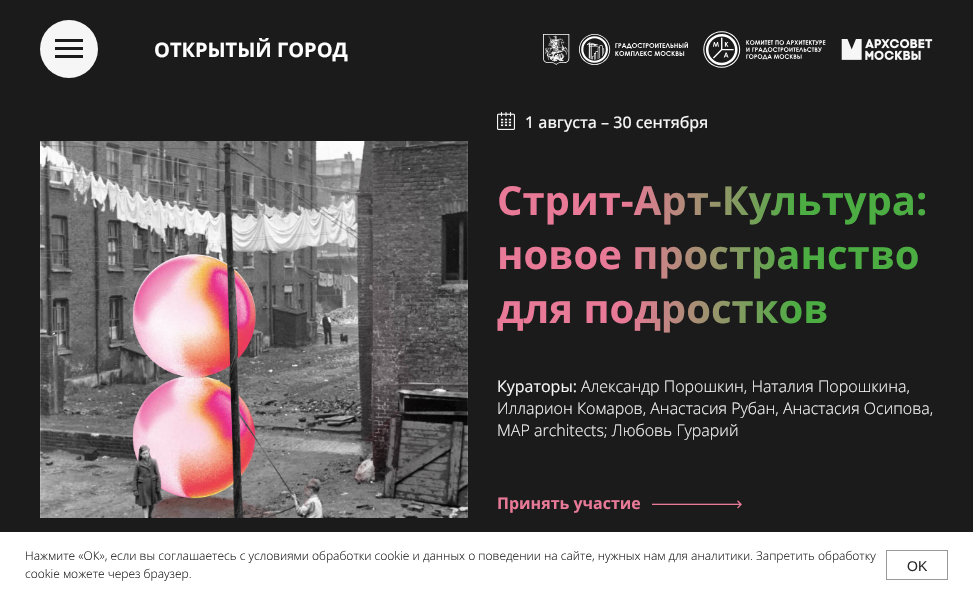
static SkFont makeFont(const char* family, int weight, float size, bool italic = false) {
  SkFontStyle style(weight, SkFontStyle::kNormal_Width,
    italic ? SkFontStyle::kItalic_Slant : SkFontStyle::kUpright_Slant);
  SkFont result(fontMgr->matchFamilyStyle(family, style), size);
  result.setSubpixel(true);
  return result;
}

static void text(SkCanvas* c, const char* s, float x, float y, const SkFont& font, SkColor color) {
  SkPaint ink(SkColor4f::FromColor(color));
  ink.setAntiAlias(true);
  c->drawString(s, x, y, font, ink);
}

static void box(SkCanvas* c, float l, float t, float r, float b, SkColor color) {
  SkPaint ink(SkColor4f::FromColor(color));
  ink.setAntiAlias(true);
  c->drawRect(SkRect::MakeLTRB(l, t, r, b), ink);
}

static void picture(SkCanvas* c, const char* path, float l, float t, float r, float b) {
  auto image = SkImages::DeferredFromEncodedData(SkData::MakeFromFileName(path));
  c->drawImageRect(image, SkRect::MakeLTRB(l, t, r, b), SkSamplingOptions());
}

void draw(SkCanvas* c) {
  SkPaint paint;
  paint.setAntiAlias(true);
  c->clear(0xff1b1b1b);
  paint.setColor(0xfff6f6f6);
  c->drawCircle(69, 49, 29, paint);
  box(c, 55, 39, 83, 42, 0xff1b1b1b);
  box(c, 55, 47, 83, 50, 0xff1b1b1b);
  box(c, 55, 55, 83, 58, 0xff1b1b1b);
  SkFont face1 = makeFont("Open Sans", 700, 20);
  text(c, "ОТКРЫТЫЙ ГОРОД", 154, 57, face1, 0xffffffff);
  picture(c, "img_01.png", 543, 34, 688, 65);
  picture(c, "img_02.png", 703, 31, 826, 68);
  picture(c, "img_03.png", 841, 39, 933, 60);
  picture(c, "img_04.png", 497, 112, 515, 130);
  SkFont face2 = makeFont("Open Sans", 500, 16);
  text(c, "1 августа – 30 сентября", 525, 128, face2, 0xfff6f6f6);
  picture(c, "img_05.png", 40, 141, 468, 518);
  SkFont face3 = makeFont("Open Sans", 700, 40);
  {
    const SkColor colors[] = {0xffe87997, 0xff4cad43};
    const float stops[] = {0.27f, 0.64f};
    const SkPoint ends[] = {{497, 254}, {969, 253}};
    paint.setShader(SkGradientShader::MakeLinear(ends, colors, stops, 2, SkTileMode::kClamp));
    paint.setAlpha(255);
  }
  c->drawString("Стрит-Арт-Культура:", 497, 215, face3, paint);
  c->drawString("новое пространство", 497, 269, face3, paint);
  c->drawString("для подростков", 497, 323, face3, paint);
  SkFont face4 = makeFont("Open Sans", 400, 16);
  text(c, "Кураторы:", 497, 392, face4, 0xfff6f6f6);
  SkFont face5 = makeFont("Open Sans", 300, 16);
  text(c, "Александр Порошкин, Наталия Порошкина,", 581, 392, face5, 0xfff6f6f6);
  text(c, "Илларион Комаров, Анастасия Рубан, Анастасия Осипова,", 497, 414, face5, 0xfff6f6f6);
  text(c, "MAP architects; Любовь Гурарий", 497, 436, face5, 0xfff6f6f6);
  SkFont face6 = makeFont("Open Sans", 700, 16);
  text(c, "Принять участие", 497, 509, face6, 0xffe87997);
  SkFont face7 = makeFont("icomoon", 700, 8);
  text(c, "➀", 652, 508, face7, 0xffe87997);
  box(c, 0, 532, 973, 599, 0xffffffff);
  SkFont face8 = makeFont("Open Sans", 300, 12);
  text(c, "Нажмите «ОК», если вы соглашаетесь с условиями обработки cookie и данных о поведении на сайте, нужных нам для аналитики. Запретить обработку", 25, 560, face8, 0xff1b1b1b);
  text(c, "cookie можете через браузер.", 25, 578, face8, 0xff1b1b1b);
  paint.setStyle(SkPaint::kStroke_Style);
  paint.setStrokeWidth(1);
  paint.setShader(nullptr);
  paint.setColor(0xff999999);
  c->drawRect(SkRect::MakeLTRB(886.5f, 550.5f, 947.5f, 579.5f), paint);
  SkFont face9 = makeFont("Liberation Sans", 400, 14);
  text(c, "OK", 907, 571, face9, 0xff292929);
}
